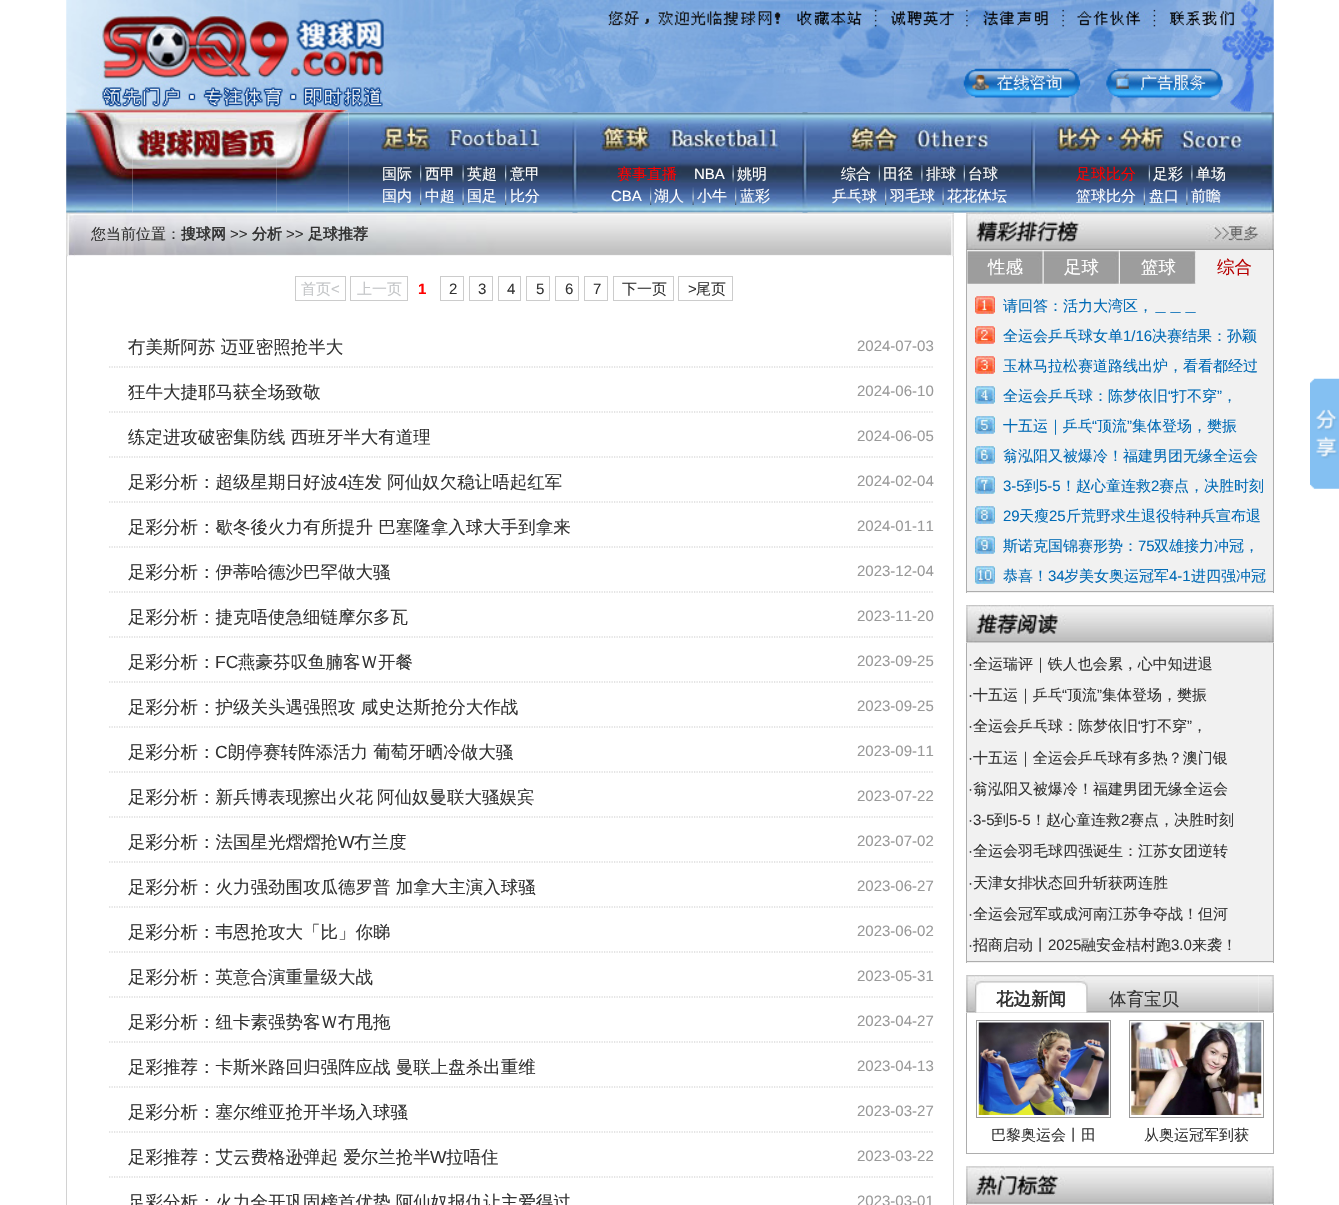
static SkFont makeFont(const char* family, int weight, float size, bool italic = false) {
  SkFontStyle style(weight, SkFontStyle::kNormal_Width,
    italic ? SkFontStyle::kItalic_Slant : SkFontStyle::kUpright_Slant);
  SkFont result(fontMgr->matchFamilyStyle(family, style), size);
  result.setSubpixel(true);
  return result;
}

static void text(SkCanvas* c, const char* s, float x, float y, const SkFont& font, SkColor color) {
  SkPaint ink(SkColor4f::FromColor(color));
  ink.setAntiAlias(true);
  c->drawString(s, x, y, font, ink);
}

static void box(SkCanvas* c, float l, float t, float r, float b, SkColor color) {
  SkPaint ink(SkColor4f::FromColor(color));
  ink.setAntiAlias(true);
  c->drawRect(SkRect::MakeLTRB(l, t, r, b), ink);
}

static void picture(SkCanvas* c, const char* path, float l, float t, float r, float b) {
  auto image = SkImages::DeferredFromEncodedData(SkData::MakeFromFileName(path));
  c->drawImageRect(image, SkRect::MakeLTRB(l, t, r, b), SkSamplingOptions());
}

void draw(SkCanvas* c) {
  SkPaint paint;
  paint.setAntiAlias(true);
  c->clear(0xffffffff);
  box(c, 66, 113, 1274, 213, 0xffeaeef1);
  picture(c, "img_07.png", 348, 112, 1274, 213);
  picture(c, "img_01.png", 66, 0, 1274, 113);
  picture(c, "img_02.png", 66, 112, 349, 125);
  picture(c, "img_33.png", 66, 212, 954, 257);
  picture(c, "img_03.png", 66, 125, 133, 213);
  picture(c, "img_04.png", 132, 125, 277, 160);
  picture(c, "img_05.png", 276, 125, 349, 213);
  picture(c, "img_06.png", 132, 160, 277, 213);
  picture(c, "img_08.png", 381, 123, 542, 152);
  picture(c, "img_09.png", 572, 112, 578, 213);
  picture(c, "img_10.png", 600, 123, 781, 152);
  picture(c, "img_11.png", 802, 112, 808, 213);
  picture(c, "img_12.png", 847, 123, 991, 152);
  picture(c, "img_13.png", 1031, 112, 1037, 213);
  picture(c, "img_14.png", 1053, 123, 1244, 152);
  picture(c, "img_15.png", 1261, 112, 1274, 213);
  SkFont face1 = makeFont("WenQuanYi Zen Hei", 500, 15);
  text(c, "国际", 382, 179, face1, 0xffffffff);
  picture(c, "img_16.png", 420, 165, 422, 183);
  text(c, "西甲", 425, 179, face1, 0xffffffff);
  picture(c, "img_17.png", 462, 165, 464, 183);
  text(c, "英超", 467, 179, face1, 0xffffffff);
  picture(c, "img_18.png", 505, 165, 507, 183);
  text(c, "意甲", 510, 179, face1, 0xffffffff);
  text(c, "国内", 382, 201, face1, 0xffffffff);
  picture(c, "img_19.png", 420, 187, 422, 205);
  text(c, "中超", 425, 201, face1, 0xffffffff);
  picture(c, "img_20.png", 462, 187, 464, 205);
  text(c, "国足", 467, 201, face1, 0xffffffff);
  picture(c, "img_21.png", 505, 187, 507, 205);
  text(c, "比分", 510, 201, face1, 0xffffffff);
  text(c, "赛事直播", 617, 179, face1, 0xffff0000);
  SkFont face2 = makeFont("Liberation Sans", 400, 15);
  text(c, "NBA", 694, 179, face2, 0xffffffff);
  picture(c, "img_22.png", 732, 165, 734, 183);
  text(c, "姚明", 737, 179, face1, 0xffffffff);
  text(c, "CBA", 611, 201, face2, 0xffffffff);
  picture(c, "img_21.png", 650, 187, 652, 205);
  text(c, "湖人", 654, 201, face1, 0xffffffff);
  picture(c, "img_23.png", 692, 187, 694, 205);
  text(c, "小牛", 697, 201, face1, 0xffffffff);
  picture(c, "img_19.png", 735, 187, 737, 205);
  text(c, "蓝彩", 740, 201, face1, 0xffffffff);
  text(c, "综合", 841, 179, face1, 0xffffffff);
  picture(c, "img_24.png", 878, 165, 880, 183);
  text(c, "田径", 883, 179, face1, 0xffffffff);
  picture(c, "img_25.png", 921, 165, 923, 183);
  text(c, "排球", 926, 179, face1, 0xffffffff);
  picture(c, "img_26.png", 963, 165, 965, 183);
  text(c, "台球", 968, 179, face1, 0xffffffff);
  text(c, "乒乓球", 832, 201, face1, 0xffffffff);
  picture(c, "img_27.png", 885, 187, 887, 205);
  text(c, "羽毛球", 890, 201, face1, 0xffffffff);
  picture(c, "img_28.png", 942, 187, 944, 205);
  text(c, "花花体坛", 947, 201, face1, 0xffffffff);
  text(c, "足球比分", 1076, 179, face1, 0xffff0000);
  picture(c, "img_29.png", 1148, 165, 1150, 183);
  text(c, "足彩", 1153, 179, face1, 0xffffffff);
  picture(c, "img_30.png", 1191, 165, 1193, 183);
  text(c, "单场", 1196, 179, face1, 0xffffffff);
  text(c, "篮球比分", 1076, 201, face1, 0xffffffff);
  picture(c, "img_31.png", 1143, 187, 1145, 205);
  text(c, "盘口", 1149, 201, face1, 0xffffffff);
  picture(c, "img_32.png", 1186, 187, 1188, 205);
  text(c, "前瞻", 1191, 201, face1, 0xffffffff);
  text(c, "您当前位置：", 91, 239, face1, 0xff333333);
  SkFont face3 = makeFont("WenQuanYi Zen Hei", 700, 15);
  text(c, "搜球网", 181, 239, face3, 0xff333333);
  text(c, ">>", 230, 239, face2, 0xff333333);
  text(c, "分析", 252, 239, face3, 0xff333333);
  text(c, ">>", 286, 239, face2, 0xff333333);
  text(c, "足球推荐", 308, 239, face3, 0xff333333);
  box(c, 953, 256, 954, 1205, 0xffd2d2d2);
  box(c, 66, 256, 67, 1205, 0xffd2d2d2);
  paint.setStyle(SkPaint::kStroke_Style);
  paint.setStrokeWidth(1);
  paint.setColor(0xffcccccc);
  c->drawRect(SkRect::MakeLTRB(295.5f, 276.5f, 345.5f, 300.5f), paint);
  text(c, "首页", 301, 294, face1, 0xffc3c5c7);
  text(c, "<", 331, 294, face2, 0xffc3c5c7);
  c->drawRect(SkRect::MakeLTRB(350.5f, 276.5f, 407.5f, 300.5f), paint);
  text(c, "上一页", 357, 294, face1, 0xffc3c5c7);
  SkFont face4 = makeFont("Liberation Sans", 700, 15);
  text(c, "1", 418, 294, face4, 0xffff0000);
  c->drawRect(SkRect::MakeLTRB(440.5f, 276.5f, 463.5f, 300.5f), paint);
  text(c, "2", 449, 294, face2, 0xff333333);
  c->drawRect(SkRect::MakeLTRB(469.5f, 276.5f, 492.5f, 300.5f), paint);
  text(c, "3", 478, 294, face2, 0xff333333);
  c->drawRect(SkRect::MakeLTRB(498.5f, 276.5f, 520.5f, 300.5f), paint);
  text(c, "4", 507, 294, face2, 0xff333333);
  c->drawRect(SkRect::MakeLTRB(526.5f, 276.5f, 549.5f, 300.5f), paint);
  text(c, "5", 536, 294, face2, 0xff333333);
  c->drawRect(SkRect::MakeLTRB(555.5f, 276.5f, 578.5f, 300.5f), paint);
  text(c, "6", 565, 294, face2, 0xff333333);
  c->drawRect(SkRect::MakeLTRB(584.5f, 276.5f, 607.5f, 300.5f), paint);
  text(c, "7", 593, 294, face2, 0xff333333);
  c->drawRect(SkRect::MakeLTRB(613.5f, 276.5f, 673.5f, 300.5f), paint);
  text(c, "下一页", 622, 294, face1, 0xff333333);
  c->drawRect(SkRect::MakeLTRB(678.5f, 276.5f, 732.5f, 300.5f), paint);
  text(c, ">", 688, 294, face2, 0xff333333);
  text(c, "尾页", 696, 294, face1, 0xff333333);
  paint.setStrokeWidth(1.2f);
  paint.setPathEffect(SkDashPathEffect::Make({{1.25f, 1.25f}}, 0));
  c->drawPath(SkPathBuilder().moveTo(109, 367).lineTo(934, 367).detach(), paint);
  paint.setPathEffect(nullptr);
  SkFont face5 = makeFont("WenQuanYi Zen Hei", 500, 17.5f);
  text(c, "冇美斯阿苏 迈亚密照抢半大", 128, 353, face5, 0xff333333);
  text(c, "2024-07-03", 857, 351, face2, 0xff999999);
  paint.setPathEffect(SkDashPathEffect::Make({{1.25f, 1.25f}}, 0));
  c->drawPath(SkPathBuilder().moveTo(109, 412).lineTo(934, 412).detach(), paint);
  paint.setPathEffect(nullptr);
  text(c, "狂牛大捷耶马获全场致敬", 128, 398, face5, 0xff333333);
  text(c, "2024-06-10", 857, 396, face2, 0xff999999);
  paint.setPathEffect(SkDashPathEffect::Make({{1.25f, 1.25f}}, 0));
  c->drawPath(SkPathBuilder().moveTo(109, 457).lineTo(934, 457).detach(), paint);
  paint.setPathEffect(nullptr);
  text(c, "练定进攻破密集防线 西班牙半大有道理", 128, 443, face5, 0xff333333);
  text(c, "2024-06-05", 857, 441, face2, 0xff999999);
  paint.setPathEffect(SkDashPathEffect::Make({{1.25f, 1.25f}}, 0));
  c->drawPath(SkPathBuilder().moveTo(109, 502).lineTo(934, 502).detach(), paint);
  paint.setPathEffect(nullptr);
  text(c, "足彩分析：超级星期日好波", 128, 488, face5, 0xff333333);
  SkFont face6 = makeFont("Liberation Sans", 400, 17.5f);
  text(c, "4", 338, 488, face6, 0xff333333);
  text(c, "连发 阿仙奴欠稳让唔起红军", 347, 488, face5, 0xff333333);
  text(c, "2024-02-04", 857, 486, face2, 0xff999999);
  paint.setPathEffect(SkDashPathEffect::Make({{1.25f, 1.25f}}, 0));
  c->drawPath(SkPathBuilder().moveTo(109, 547).lineTo(934, 547).detach(), paint);
  paint.setPathEffect(nullptr);
  text(c, "足彩分析：歇冬後火力有所提升 巴塞隆拿入球大手到拿来", 128, 533, face5, 0xff333333);
  text(c, "2024-01-11", 857, 531, face2, 0xff999999);
  paint.setPathEffect(SkDashPathEffect::Make({{1.25f, 1.25f}}, 0));
  c->drawPath(SkPathBuilder().moveTo(109, 592).lineTo(934, 592).detach(), paint);
  paint.setPathEffect(nullptr);
  text(c, "足彩分析：伊蒂哈德沙巴罕做大骚", 128, 578, face5, 0xff333333);
  text(c, "2023-12-04", 857, 576, face2, 0xff999999);
  paint.setPathEffect(SkDashPathEffect::Make({{1.25f, 1.25f}}, 0));
  c->drawPath(SkPathBuilder().moveTo(109, 637).lineTo(934, 637).detach(), paint);
  paint.setPathEffect(nullptr);
  text(c, "足彩分析：捷克唔使急细链摩尔多瓦", 128, 623, face5, 0xff333333);
  text(c, "2023-11-20", 857, 621, face2, 0xff999999);
  paint.setPathEffect(SkDashPathEffect::Make({{1.25f, 1.25f}}, 0));
  c->drawPath(SkPathBuilder().moveTo(109, 682).lineTo(934, 682).detach(), paint);
  paint.setPathEffect(nullptr);
  text(c, "足彩分析：", 128, 668, face5, 0xff333333);
  text(c, "FC", 215, 668, face6, 0xff333333);
  text(c, "燕豪芬叹鱼腩客Ｗ开餐", 238, 668, face5, 0xff333333);
  text(c, "2023-09-25", 857, 666, face2, 0xff999999);
  paint.setPathEffect(SkDashPathEffect::Make({{1.25f, 1.25f}}, 0));
  c->drawPath(SkPathBuilder().moveTo(109, 727).lineTo(934, 727).detach(), paint);
  paint.setPathEffect(nullptr);
  text(c, "足彩分析：护级关头遇强照攻 咸史达斯抢分大作战", 128, 713, face5, 0xff333333);
  text(c, "2023-09-25", 857, 711, face2, 0xff999999);
  paint.setPathEffect(SkDashPathEffect::Make({{1.25f, 1.25f}}, 0));
  c->drawPath(SkPathBuilder().moveTo(109, 772).lineTo(934, 772).detach(), paint);
  paint.setPathEffect(nullptr);
  text(c, "足彩分析：", 128, 758, face5, 0xff333333);
  text(c, "C", 215, 758, face6, 0xff333333);
  text(c, "朗停赛转阵添活力 葡萄牙晒冷做大骚", 228, 758, face5, 0xff333333);
  text(c, "2023-09-11", 857, 756, face2, 0xff999999);
  paint.setPathEffect(SkDashPathEffect::Make({{1.25f, 1.25f}}, 0));
  c->drawPath(SkPathBuilder().moveTo(109, 817).lineTo(934, 817).detach(), paint);
  paint.setPathEffect(nullptr);
  text(c, "足彩分析：新兵博表现擦出火花", 128, 803, face5, 0xff333333);
  text(c, "阿仙奴曼联大骚娱宾", 377, 803, face5, 0xff333333);
  text(c, "2023-07-22", 857, 801, face2, 0xff999999);
  paint.setPathEffect(SkDashPathEffect::Make({{1.25f, 1.25f}}, 0));
  c->drawPath(SkPathBuilder().moveTo(109, 862).lineTo(934, 862).detach(), paint);
  paint.setPathEffect(nullptr);
  text(c, "足彩分析：法国星光熠熠抢", 128, 848, face5, 0xff333333);
  text(c, "W", 338, 848, face6, 0xff333333);
  text(c, "冇兰度", 354, 848, face5, 0xff333333);
  text(c, "2023-07-02", 857, 846, face2, 0xff999999);
  paint.setPathEffect(SkDashPathEffect::Make({{1.25f, 1.25f}}, 0));
  c->drawPath(SkPathBuilder().moveTo(109, 907).lineTo(934, 907).detach(), paint);
  paint.setPathEffect(nullptr);
  text(c, "足彩分析：火力强劲围攻瓜德罗普 加拿大主演入球骚", 128, 893, face5, 0xff333333);
  text(c, "2023-06-27", 857, 891, face2, 0xff999999);
  paint.setPathEffect(SkDashPathEffect::Make({{1.25f, 1.25f}}, 0));
  c->drawPath(SkPathBuilder().moveTo(109, 952).lineTo(934, 952).detach(), paint);
  paint.setPathEffect(nullptr);
  text(c, "足彩分析：韦恩抢攻大「比」你睇", 128, 938, face5, 0xff333333);
  text(c, "2023-06-02", 857, 936, face2, 0xff999999);
  paint.setPathEffect(SkDashPathEffect::Make({{1.25f, 1.25f}}, 0));
  c->drawPath(SkPathBuilder().moveTo(109, 997).lineTo(934, 997).detach(), paint);
  paint.setPathEffect(nullptr);
  text(c, "足彩分析：英意合演重量级大战", 128, 983, face5, 0xff333333);
  text(c, "2023-05-31", 857, 981, face2, 0xff999999);
  paint.setPathEffect(SkDashPathEffect::Make({{1.25f, 1.25f}}, 0));
  c->drawPath(SkPathBuilder().moveTo(109, 1042).lineTo(934, 1042).detach(), paint);
  paint.setPathEffect(nullptr);
  text(c, "足彩分析：纽卡素强势客Ｗ冇甩拖", 128, 1028, face5, 0xff333333);
  text(c, "2023-04-27", 857, 1026, face2, 0xff999999);
  paint.setPathEffect(SkDashPathEffect::Make({{1.25f, 1.25f}}, 0));
  c->drawPath(SkPathBuilder().moveTo(109, 1087).lineTo(934, 1087).detach(), paint);
  paint.setPathEffect(nullptr);
  text(c, "足彩推荐：卡斯米路回归强阵应战 曼联上盘杀出重维", 128, 1073, face5, 0xff333333);
  text(c, "2023-04-13", 857, 1071, face2, 0xff999999);
  paint.setPathEffect(SkDashPathEffect::Make({{1.25f, 1.25f}}, 0));
  c->drawPath(SkPathBuilder().moveTo(109, 1132).lineTo(934, 1132).detach(), paint);
  paint.setPathEffect(nullptr);
  text(c, "足彩分析：塞尔维亚抢开半场入球骚", 128, 1118, face5, 0xff333333);
  text(c, "2023-03-27", 857, 1116, face2, 0xff999999);
  paint.setPathEffect(SkDashPathEffect::Make({{1.25f, 1.25f}}, 0));
  c->drawPath(SkPathBuilder().moveTo(109, 1177).lineTo(934, 1177).detach(), paint);
  paint.setPathEffect(nullptr);
  text(c, "足彩推荐：艾云费格逊弹起 爱尔兰抢半", 128, 1163, face5, 0xff333333);
  text(c, "W", 430, 1163, face6, 0xff333333);
  text(c, "拉唔住", 446, 1163, face5, 0xff333333);
  text(c, "2023-03-22", 857, 1161, face2, 0xff999999);
  text(c, "足彩分析：火力全开巩固榜首优势 阿仙奴报仇让主爱得过", 128, 1208, face5, 0xff333333);
  text(c, "2023-03-01", 857, 1206, face2, 0xff999999);
  picture(c, "img_34.png", 966, 212, 1274, 250);
  box(c, 967, 250, 1273, 593, 0xfff1f1f1);
  box(c, 1273, 250, 1274, 593, 0xffadadad);
  box(c, 966, 591, 1274, 592, 0xffadadad);
  box(c, 966, 250, 967, 593, 0xffadadad);
  picture(c, "img_35.png", 967, 250, 1044, 284);
  text(c, "性感", 988, 273, face5, 0xffffffff);
  picture(c, "img_36.png", 1043, 250, 1120, 284);
  text(c, "足球", 1064, 273, face5, 0xffffffff);
  picture(c, "img_37.png", 1120, 250, 1196, 284);
  text(c, "篮球", 1141, 273, face5, 0xffffffff);
  text(c, "综合", 1217, 273, face5, 0xffb70000);
  picture(c, "img_38.png", 975, 296, 995, 314);
  text(c, "请回答：活力大湾区，＿＿＿", 1003, 311, face1, 0xff006ab5);
  picture(c, "img_39.png", 975, 326, 995, 344);
  text(c, "全运会乒乓球女单", 1003, 341, face1, 0xff006ab5);
  text(c, "1/16", 1123, 341, face2, 0xff006ab5);
  text(c, "决赛结果：孙颖", 1152, 341, face1, 0xff006ab5);
  picture(c, "img_40.png", 975, 356, 995, 374);
  text(c, "玉林马拉松赛道路线出炉，看看都经过", 1003, 371, face1, 0xff006ab5);
  picture(c, "img_41.png", 975, 386, 995, 404);
  text(c, "全运会乒乓球：陈梦依旧", 1003, 401, face1, 0xff006ab5);
  text(c, "“", 1168, 401, face2, 0xff006ab5);
  text(c, "打不穿", 1172, 401, face1, 0xff006ab5);
  text(c, "”", 1217, 401, face2, 0xff006ab5);
  text(c, "，", 1222, 401, face1, 0xff006ab5);
  picture(c, "img_42.png", 975, 416, 995, 434);
  text(c, "十五运｜乒乓", 1003, 431, face1, 0xff006ab5);
  text(c, "“", 1092, 431, face2, 0xff006ab5);
  text(c, "顶流", 1097, 431, face1, 0xff006ab5);
  text(c, "”", 1127, 431, face2, 0xff006ab5);
  text(c, "集体登场，樊振", 1132, 431, face1, 0xff006ab5);
  picture(c, "img_43.png", 975, 446, 995, 464);
  text(c, "翁泓阳又被爆冷！福建男团无缘全运会", 1003, 461, face1, 0xff006ab5);
  picture(c, "img_44.png", 975, 476, 995, 494);
  text(c, "3-5", 1003, 491, face2, 0xff006ab5);
  text(c, "到", 1024, 491, face1, 0xff006ab5);
  text(c, "5-5", 1039, 491, face2, 0xff006ab5);
  text(c, "！赵心童连救", 1061, 491, face1, 0xff006ab5);
  text(c, "2", 1151, 491, face2, 0xff006ab5);
  text(c, "赛点，决胜时刻", 1159, 491, face1, 0xff006ab5);
  picture(c, "img_45.png", 975, 506, 995, 524);
  text(c, "29", 1003, 521, face2, 0xff006ab5);
  text(c, "天瘦", 1019, 521, face1, 0xff006ab5);
  text(c, "25", 1049, 521, face2, 0xff006ab5);
  text(c, "斤荒野求生退役特种兵宣布退", 1066, 521, face1, 0xff006ab5);
  picture(c, "img_46.png", 975, 536, 995, 554);
  text(c, "斯诺克国锦赛形势：", 1003, 551, face1, 0xff006ab5);
  text(c, "75", 1138, 551, face2, 0xff006ab5);
  text(c, "双雄接力冲冠，", 1154, 551, face1, 0xff006ab5);
  picture(c, "img_47.png", 975, 566, 995, 584);
  text(c, "恭喜！", 1003, 581, face1, 0xff006ab5);
  text(c, "34", 1048, 581, face2, 0xff006ab5);
  text(c, "岁美女奥运冠军", 1064, 581, face1, 0xff006ab5);
  text(c, "4-1", 1169, 581, face2, 0xff006ab5);
  text(c, "进四强冲冠", 1191, 581, face1, 0xff006ab5);
  picture(c, "img_48.png", 966, 605, 1274, 643);
  box(c, 967, 643, 1273, 963, 0xfff1f1f1);
  box(c, 1273, 643, 1274, 963, 0xffadadad);
  box(c, 966, 961, 1274, 962, 0xffadadad);
  box(c, 966, 643, 967, 963, 0xffadadad);
  text(c, "·", 968, 669, face2, 0xff333333);
  text(c, "全运瑞评｜铁人也会累，心中知进退", 973, 669, face1, 0xff333333);
  text(c, "十五运｜乒乓", 973, 700, face1, 0xff333333);
  text(c, "“", 1062, 700, face2, 0xff333333);
  text(c, "顶流", 1067, 700, face1, 0xff333333);
  text(c, "”", 1097, 700, face2, 0xff333333);
  text(c, "集体登场，樊振", 1102, 700, face1, 0xff333333);
  text(c, "·", 968, 700, face2, 0xff333333);
  text(c, "全运会乒乓球：陈梦依旧", 973, 731, face1, 0xff333333);
  text(c, "“", 1138, 731, face2, 0xff333333);
  text(c, "打不穿", 1142, 731, face1, 0xff333333);
  text(c, "”", 1187, 731, face2, 0xff333333);
  text(c, "·", 968, 731, face2, 0xff333333);
  text(c, "，", 1192, 731, face1, 0xff333333);
  text(c, "·", 968, 763, face2, 0xff333333);
  text(c, "十五运｜全运会乒乓球有多热？澳门银", 973, 763, face1, 0xff333333);
  text(c, "·", 968, 794, face2, 0xff333333);
  text(c, "翁泓阳又被爆冷！福建男团无缘全运会", 973, 794, face1, 0xff333333);
  text(c, "·", 968, 825, face2, 0xff333333);
  text(c, "3-5", 973, 825, face2, 0xff333333);
  text(c, "到", 994, 825, face1, 0xff333333);
  text(c, "5-5", 1009, 825, face2, 0xff333333);
  text(c, "！赵心童连救", 1031, 825, face1, 0xff333333);
  text(c, "2", 1121, 825, face2, 0xff333333);
  text(c, "赛点，决胜时刻", 1129, 825, face1, 0xff333333);
  text(c, "·", 968, 856, face2, 0xff333333);
  text(c, "全运会羽毛球四强诞生：江苏女团逆转", 973, 856, face1, 0xff333333);
  text(c, "·", 968, 888, face2, 0xff333333);
  text(c, "天津女排状态回升斩获两连胜", 973, 888, face1, 0xff333333);
  text(c, "·", 968, 919, face2, 0xff333333);
  text(c, "全运会冠军或成河南江苏争夺战！但河", 973, 919, face1, 0xff333333);
  text(c, "·", 968, 950, face2, 0xff333333);
  text(c, "招商启动丨", 973, 950, face1, 0xff333333);
  text(c, "2025", 1048, 950, face2, 0xff333333);
  text(c, "融安金桔村跑", 1081, 950, face1, 0xff333333);
  text(c, "3.0", 1171, 950, face2, 0xff333333);
  text(c, "来袭！", 1192, 950, face1, 0xff333333);
  picture(c, "img_49.png", 966, 975, 975, 1013);
  picture(c, "img_50.png", 975, 975, 1259, 1013);
  picture(c, "img_51.png", 975, 976, 1088, 1013);
  SkFont face7 = makeFont("WenQuanYi Zen Hei", 700, 17.5f);
  text(c, "花边新闻", 996, 1005, face7, 0xff333333);
  text(c, "体育宝贝", 1109, 1005, face5, 0xff333333);
  picture(c, "img_52.png", 1258, 975, 1274, 1013);
  box(c, 1273, 1013, 1274, 1154, 0xffadadad);
  box(c, 966, 1153, 1274, 1154, 0xffadadad);
  box(c, 966, 1013, 967, 1154, 0xffadadad);
  paint.setStrokeWidth(1);
  paint.setColor(0xff999999);
  c->drawRect(SkRect::MakeLTRB(976.5f, 1020.5f, 1110.5f, 1117.5f), paint);
  picture(c, "img_53.png", 978, 1022, 1109, 1115);
  text(c, "巴黎奥运会丨田", 991, 1140, face1, 0xff333333);
  c->drawRect(SkRect::MakeLTRB(1129.5f, 1020.5f, 1263.5f, 1117.5f), paint);
  picture(c, "img_54.png", 1131, 1022, 1262, 1115);
  text(c, "从奥运冠军到获", 1144, 1140, face1, 0xff333333);
  picture(c, "img_55.png", 966, 1166, 1274, 1204);
  box(c, 966, 1204, 1274, 1205, 0xfff1f1f1);
  box(c, 1273, 1204, 1274, 1205, 0xffadadad);
  box(c, 966, 1204, 967, 1205, 0xffadadad);
  picture(c, "img_56.png", 1310, 378, 1339, 489);
}
